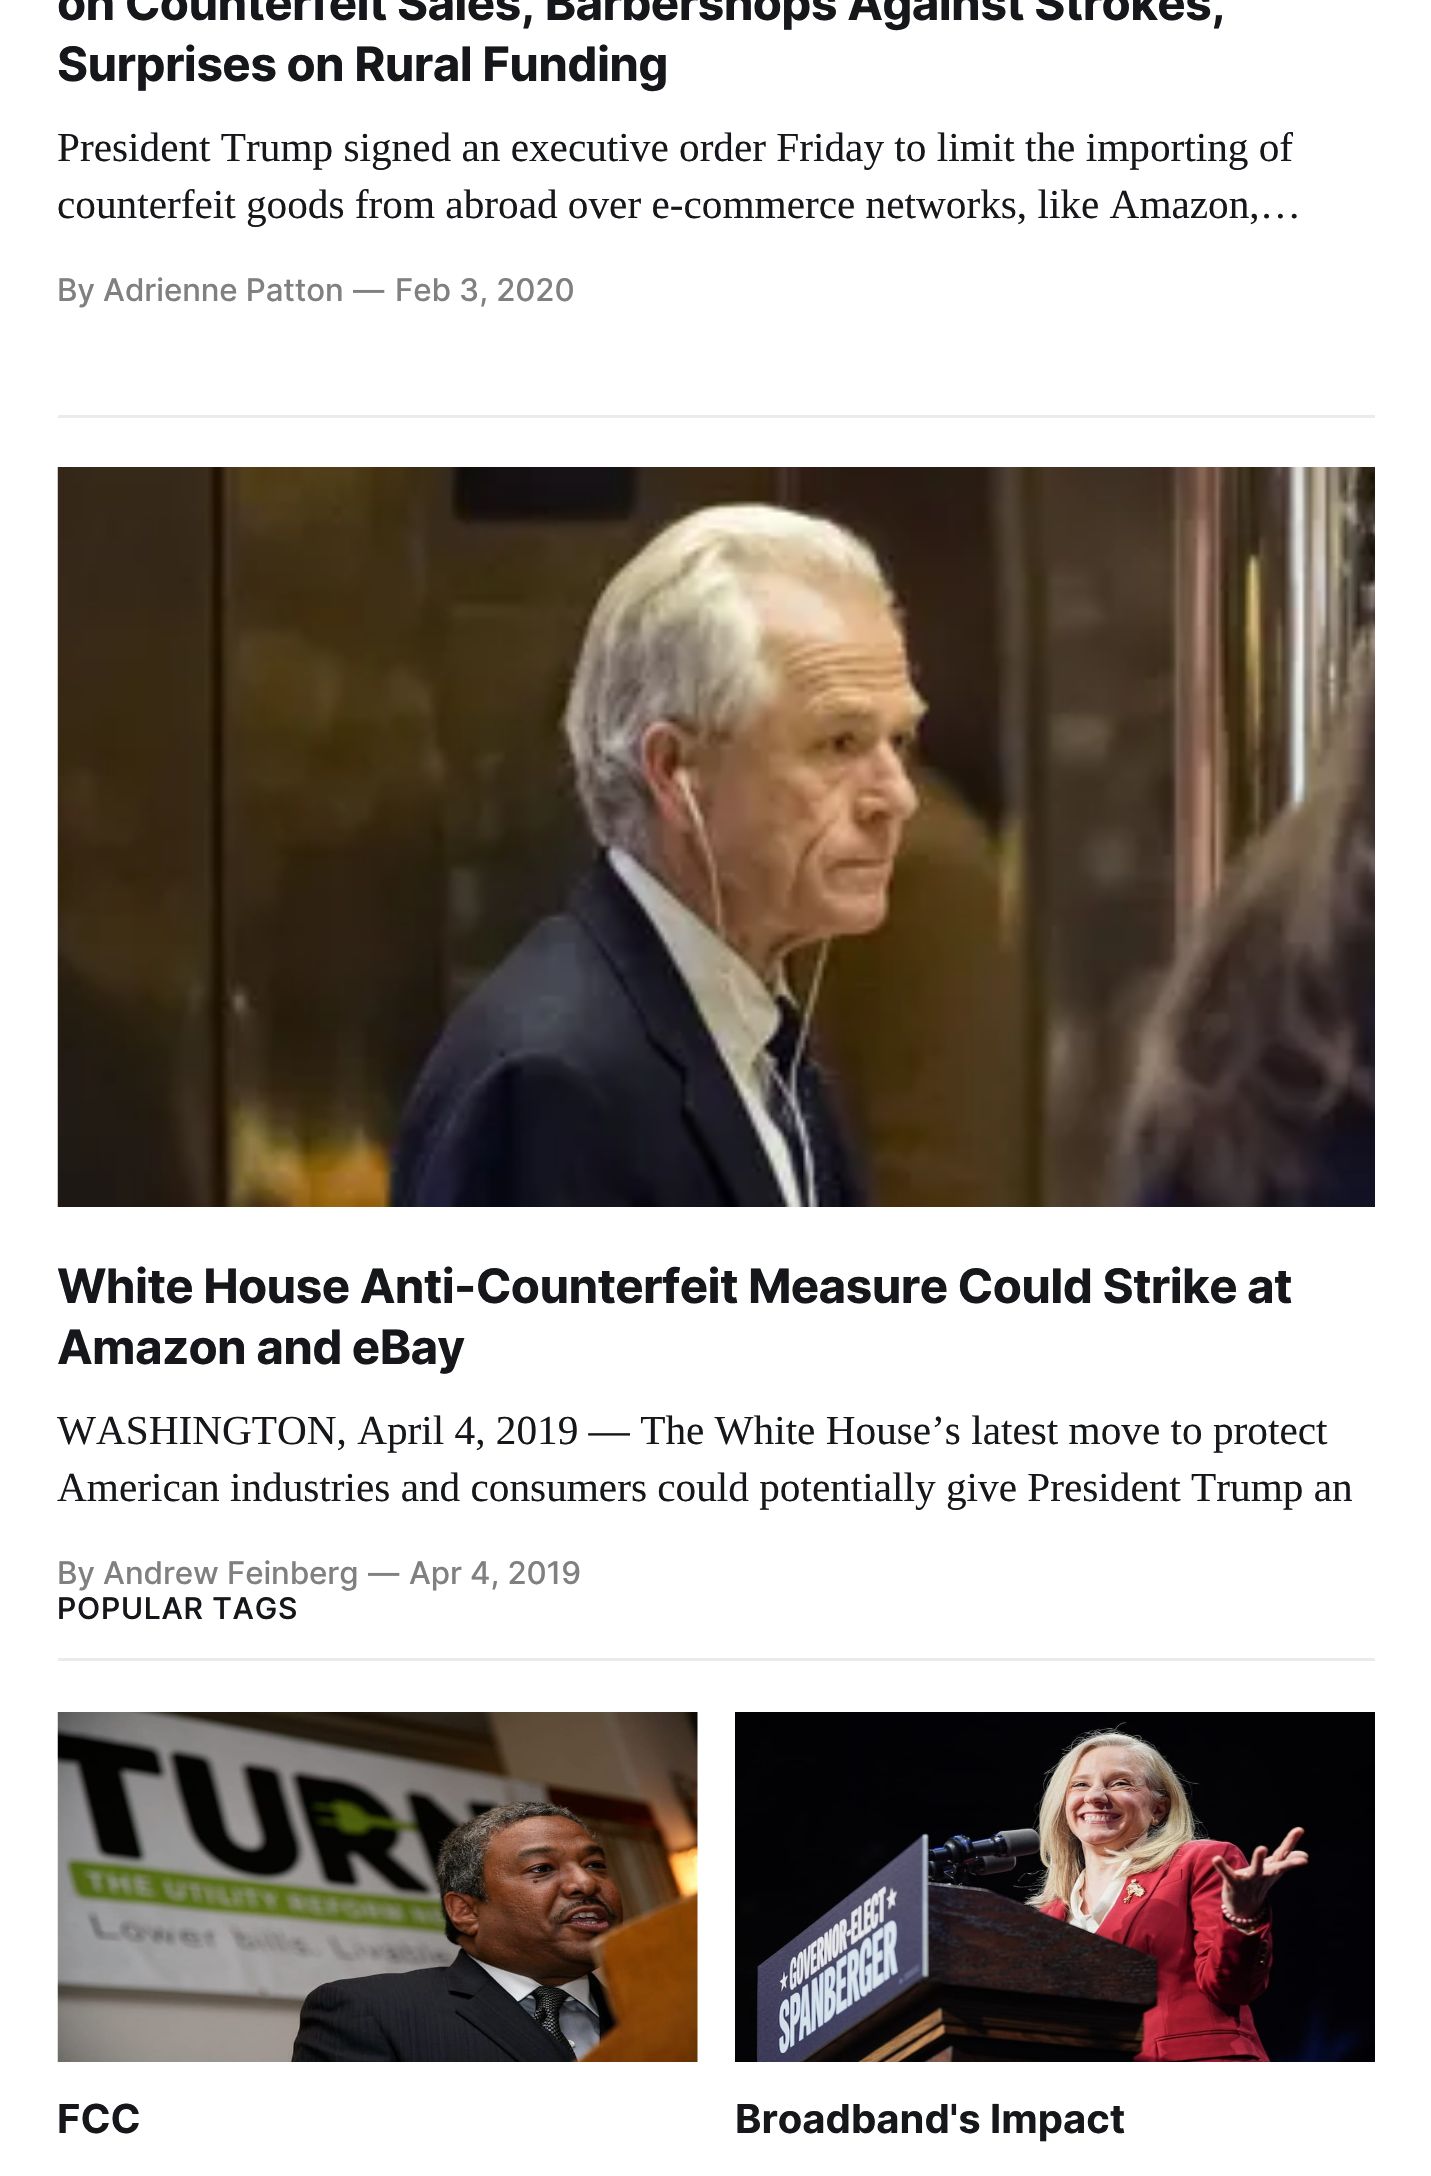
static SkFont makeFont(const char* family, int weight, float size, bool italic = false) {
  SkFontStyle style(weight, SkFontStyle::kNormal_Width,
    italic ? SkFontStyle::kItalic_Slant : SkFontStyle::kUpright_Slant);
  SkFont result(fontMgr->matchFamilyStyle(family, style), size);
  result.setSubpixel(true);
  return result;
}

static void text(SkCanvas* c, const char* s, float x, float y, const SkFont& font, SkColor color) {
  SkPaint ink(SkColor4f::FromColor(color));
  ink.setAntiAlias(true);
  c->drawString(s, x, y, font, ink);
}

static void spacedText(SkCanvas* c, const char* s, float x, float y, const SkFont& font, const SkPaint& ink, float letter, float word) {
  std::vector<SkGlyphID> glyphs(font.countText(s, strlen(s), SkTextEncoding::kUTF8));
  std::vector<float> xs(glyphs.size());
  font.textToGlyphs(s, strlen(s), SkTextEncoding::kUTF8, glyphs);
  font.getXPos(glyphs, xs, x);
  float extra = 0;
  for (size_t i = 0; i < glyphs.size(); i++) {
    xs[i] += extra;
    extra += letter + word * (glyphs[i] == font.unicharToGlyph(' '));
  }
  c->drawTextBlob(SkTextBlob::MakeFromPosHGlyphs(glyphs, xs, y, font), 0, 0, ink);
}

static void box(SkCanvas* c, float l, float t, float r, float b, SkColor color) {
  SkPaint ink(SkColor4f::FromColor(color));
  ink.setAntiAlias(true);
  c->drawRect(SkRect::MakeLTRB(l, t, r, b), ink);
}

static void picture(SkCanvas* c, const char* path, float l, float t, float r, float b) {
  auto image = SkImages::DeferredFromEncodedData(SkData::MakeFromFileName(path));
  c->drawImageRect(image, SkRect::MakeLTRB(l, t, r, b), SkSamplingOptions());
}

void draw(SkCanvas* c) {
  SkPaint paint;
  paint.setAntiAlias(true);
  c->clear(0xffffffff);
  SkFont face1 = makeFont("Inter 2", 700, 47.5f);
  paint.setColor(0xff15171a);
  spacedText(c, "on Counterfeit Sales, Barbershops Against Strokes,", 57, 20, face1, paint, -0.67f, 0);
  spacedText(c, "Surprises on Rural Funding", 57, 81, face1, paint, -0.67f, 0);
  SkFont face2 = makeFont("Liberation Serif", 400, 41.25f);
  text(c, "President Trump signed an executive order Friday to limit the importing of", 57, 161, face2, 0xff15171a);
  text(c, "counterfeit goods from abroad over e-commerce networks, like Amazon,…", 57, 218, face2, 0xff15171a);
  SkFont face3 = makeFont("Inter 2", 500, 31.25f);
  paint.setColor(0xff808080);
  spacedText(c, "By Adrienne Patton", 57, 301, face3, paint, -0.1f, 0);
  spacedText(c, "—", 353, 301, face3, paint, -0.1f, 0);
  spacedText(c, "Feb 3, 2020", 395, 301, face3, paint, -0.1f, 0);
  box(c, 58, 415, 1375, 418, 0xffebebeb);
  picture(c, "img_01.png", 57, 467, 1375, 1207);
  paint.setColor(0xff15171a);
  spacedText(c, "White House Anti-Counterfeit Measure Could Strike at", 57, 1303, face1, paint, -0.67f, 0);
  spacedText(c, "Amazon and eBay", 57, 1364, face1, paint, -0.67f, 0);
  text(c, "WASHINGTON, April 4, 2019 — The White House’s latest move to protect", 57, 1444, face2, 0xff15171a);
  text(c, "American industries and consumers could potentially give President Trump an", 57, 1501, face2, 0xff15171a);
  paint.setColor(0xff808080);
  spacedText(c, "By Andrew Feinberg", 57, 1584, face3, paint, -0.1f, 0);
  spacedText(c, "—", 368, 1584, face3, paint, -0.1f, 0);
  spacedText(c, "Apr 4, 2019", 409, 1584, face3, paint, -0.1f, 0);
  box(c, 58, 1658, 1375, 1661, 0xffebebeb);
  SkFont face4 = makeFont("Inter", 500, 30);
  paint.setColor(0xff15171a);
  spacedText(c, "POPULAR TAGS", 57, 1619, face4, paint, 0.75f, 0);
  picture(c, "img_02.png", 57, 1712, 698, 2062);
  SkFont face5 = makeFont("Inter", 700, 40);
  text(c, "FCC", 57, 2133, face5, 0xff15171a);
  picture(c, "img_03.png", 735, 1712, 1375, 2062);
  text(c, "Broadband's Impact", 735, 2133, face5, 0xff15171a);
}
